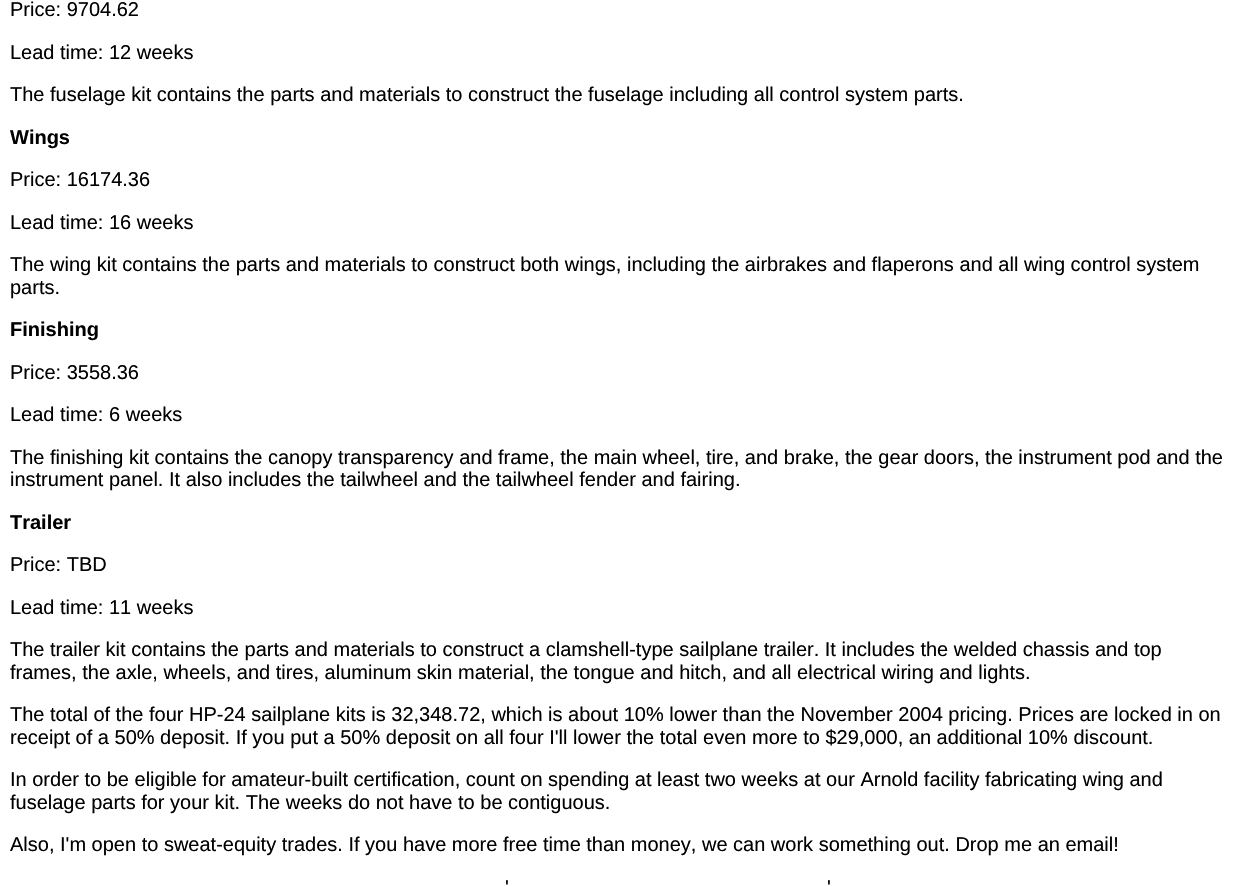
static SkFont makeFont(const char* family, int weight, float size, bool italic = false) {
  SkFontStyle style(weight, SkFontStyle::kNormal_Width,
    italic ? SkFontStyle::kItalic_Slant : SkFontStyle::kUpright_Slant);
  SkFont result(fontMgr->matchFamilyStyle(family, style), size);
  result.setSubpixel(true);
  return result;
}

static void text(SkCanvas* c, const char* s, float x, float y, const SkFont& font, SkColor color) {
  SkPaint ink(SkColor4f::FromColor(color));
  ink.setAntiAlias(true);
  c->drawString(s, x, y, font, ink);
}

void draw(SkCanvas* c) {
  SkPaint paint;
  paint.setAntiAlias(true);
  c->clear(0xffffffff);
  SkFont face1 = makeFont("Liberation Sans", 400, 20);
  text(c, "Price: 9704.62", 10, 16, face1, 0xff000000);
  text(c, "Lead time: 12 weeks", 10, 59, face1, 0xff000000);
  text(c, "The fuselage kit contains the parts and materials to construct the fuselage including all control system parts.", 10, 101, face1, 0xff000000);
  SkFont face2 = makeFont("Liberation Sans", 700, 20);
  text(c, "Wings", 10, 144, face2, 0xff000000);
  text(c, "Price: 16174.36", 10, 186, face1, 0xff000000);
  text(c, "Lead time: 16 weeks", 10, 229, face1, 0xff000000);
  text(c, "The wing kit contains the parts and materials to construct both wings, including the airbrakes and flaperons and all wing control system", 10, 271, face1, 0xff000000);
  text(c, "parts.", 10, 294, face1, 0xff000000);
  text(c, "Finishing", 10, 336, face2, 0xff000000);
  text(c, "Price: 3558.36", 10, 379, face1, 0xff000000);
  text(c, "Lead time: 6 weeks", 10, 421, face1, 0xff000000);
  text(c, "The finishing kit contains the canopy transparency and frame, the main wheel, tire, and brake, the gear doors, the instrument pod and the", 10, 464, face1, 0xff000000);
  text(c, "instrument panel. It also includes the tailwheel and the tailwheel fender and fairing.", 10, 486, face1, 0xff000000);
  text(c, "Trailer", 10, 529, face2, 0xff000000);
  text(c, "Price: TBD", 10, 571, face1, 0xff000000);
  text(c, "Lead time: 11 weeks", 10, 614, face1, 0xff000000);
  text(c, "The trailer kit contains the parts and materials to construct a clamshell-type sailplane trailer. It includes the welded chassis and top", 10, 656, face1, 0xff000000);
  text(c, "frames, the axle, wheels, and tires, aluminum skin material, the tongue and hitch, and all electrical wiring and lights.", 10, 679, face1, 0xff000000);
  text(c, "The total of the four HP-24 sailplane kits is 32,348.72, which is about 10% lower than the November 2004 pricing. Prices are locked in on", 10, 721, face1, 0xff000000);
  text(c, "receipt of a 50% deposit. If you put a 50% deposit on all four I'll lower the total even more to $29,000, an additional 10% discount.", 10, 744, face1, 0xff000000);
  text(c, "In order to be eligible for amateur-built certification, count on spending at least two weeks at our Arnold facility fabricating wing and", 10, 786, face1, 0xff000000);
  text(c, "fuselage parts for your kit. The weeks do not have to be contiguous.", 10, 809, face1, 0xff000000);
  text(c, "Also, I'm open to sweat-equity trades. If you have more free time than money, we can work something out. Drop me an email!", 10, 851, face1, 0xff000000);
  text(c, "'", 505, 894, face1, 0xff000000);
  text(c, "'", 827, 894, face1, 0xff000000);
}
